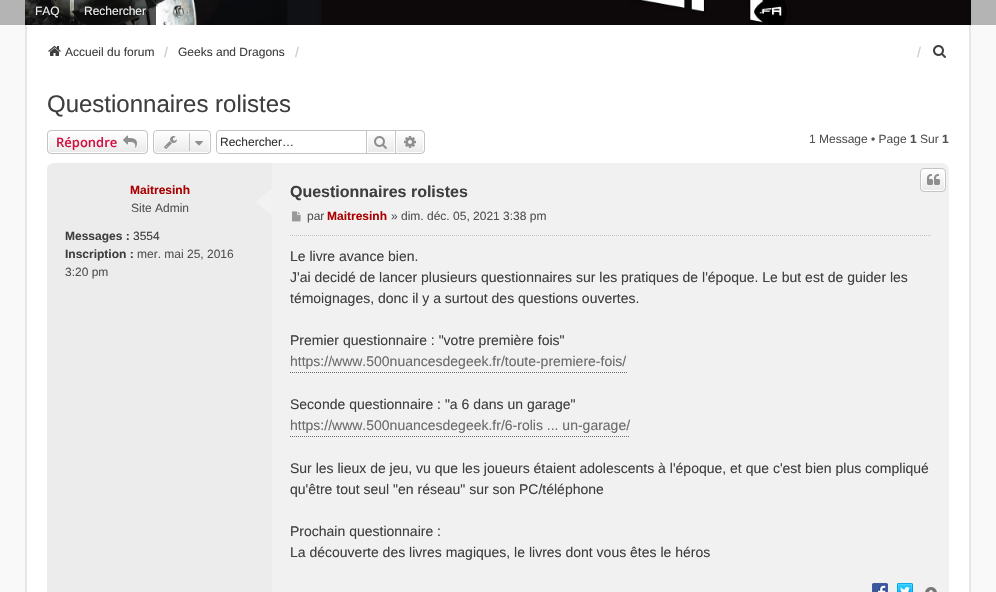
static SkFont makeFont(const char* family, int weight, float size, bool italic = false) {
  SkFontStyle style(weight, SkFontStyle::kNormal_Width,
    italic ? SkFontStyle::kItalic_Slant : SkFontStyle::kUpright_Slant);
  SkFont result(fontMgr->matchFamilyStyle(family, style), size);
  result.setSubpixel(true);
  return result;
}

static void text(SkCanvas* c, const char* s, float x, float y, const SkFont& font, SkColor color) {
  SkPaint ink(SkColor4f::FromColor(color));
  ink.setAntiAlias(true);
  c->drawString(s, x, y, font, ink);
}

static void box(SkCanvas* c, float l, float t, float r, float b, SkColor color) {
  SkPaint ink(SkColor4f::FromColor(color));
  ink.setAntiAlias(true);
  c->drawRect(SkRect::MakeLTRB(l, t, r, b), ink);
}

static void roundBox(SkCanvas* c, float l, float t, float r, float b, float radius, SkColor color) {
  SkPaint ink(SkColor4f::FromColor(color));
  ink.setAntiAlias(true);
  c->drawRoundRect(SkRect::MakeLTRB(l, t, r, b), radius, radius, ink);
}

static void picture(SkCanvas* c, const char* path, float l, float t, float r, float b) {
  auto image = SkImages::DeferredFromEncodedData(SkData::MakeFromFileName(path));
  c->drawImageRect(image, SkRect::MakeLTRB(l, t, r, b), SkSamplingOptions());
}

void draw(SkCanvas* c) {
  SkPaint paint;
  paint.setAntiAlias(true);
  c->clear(0xfff9f9f9);
  box(c, 0, 0, 996, 25, 0xffb4b4b4);
  picture(c, "img_01.png", 25, 0, 971, 25);
  box(c, 25, 0, 70, 25, 0xb30a0a0a);
  SkFont face1 = makeFont("Liberation Sans", 400, 12);
  text(c, "FAQ", 35, 15, face1, 0xffeeeeee);
  box(c, 74, 0, 156, 25, 0xb30a0a0a);
  text(c, "Rechercher", 84, 15, face1, 0xffeeeeee);
  box(c, 27, 25, 969, 592, 0xffffffff);
  box(c, 969, 25, 971, 592, 0xffe7e7e7);
  box(c, 25, 25, 27, 592, 0xffe7e7e7);
  picture(c, "img_02.png", 48, 46, 61, 56);
  text(c, "Accueil du forum", 65, 56, face1, 0xff3f3f3f);
  SkFont face2 = makeFont("Liberation Sans", 400, 14);
  text(c, "/", 164, 57, face2, 0xffcacaca);
  text(c, "Geeks and Dragons", 178, 56, face1, 0xff3f3f3f);
  text(c, "/", 295, 57, face2, 0xffcacaca);
  text(c, "/", 917, 57, face2, 0xffcacaca);
  picture(c, "img_03.png", 933, 45, 946, 58);
  SkFont face3 = makeFont("Liberation Sans", 400, 24);
  text(c, "Questionnaires rolistes", 47, 112, face3, 0xff3f3f3f);
  c->save();
  c->clipPath(SkPathBuilder().moveTo(51, 130).lineTo(144, 130).cubicTo(146, 130, 148, 132, 148, 134).lineTo(148, 150).cubicTo(148, 152, 146, 154, 144, 154).lineTo(51, 154).cubicTo(49, 154, 47, 152, 47, 150).lineTo(47, 134).cubicTo(47, 132, 49, 130, 51, 130).close().detach(), true);
  {
    const SkColor colors[] = {0xffffffff, 0xffe9e9e9};
    const float stops[] = {0, 1};
    const SkPoint ends[] = {{98, 131}, {98, 153}};
    paint.setShader(SkGradientShader::MakeLinear(ends, colors, stops, 2, SkTileMode::kClamp));
    paint.setAlpha(255);
  }
  c->drawRect(SkRect::MakeLTRB(47, 131, 148, 153), paint);
  c->restore();
  paint.setStyle(SkPaint::kStroke_Style);
  paint.setStrokeWidth(1);
  paint.setShader(nullptr);
  paint.setColor(0xffffffff);
  c->drawRoundRect(SkRect::MakeLTRB(48.5f, 131.5f, 146.5f, 152.5f), 2.5f, 2.5f, paint);
  paint.setColor(0xffc7c3bf);
  c->drawRoundRect(SkRect::MakeLTRB(47.5f, 130.5f, 147.5f, 153.5f), 3.5f, 3.5f, paint);
  SkFont face4 = makeFont("Open Sans", 600, 13);
  text(c, "Répondre", 56, 147, face4, 0xffd31141);
  picture(c, "img_04.png", 123, 135, 137, 148);
  c->save();
  c->clipPath(SkPathBuilder().moveTo(157, 130).lineTo(207, 130).cubicTo(209, 130, 211, 132, 211, 134).lineTo(211, 150).cubicTo(211, 152, 209, 154, 207, 154).lineTo(157, 154).cubicTo(155, 154, 153, 152, 153, 150).lineTo(153, 134).cubicTo(153, 132, 155, 130, 157, 130).close().detach(), true);
  paint.setStyle(SkPaint::kFill_Style);
  {
    const SkColor colors[] = {0xffffffff, 0xffe9e9e9};
    const float stops[] = {0, 1};
    const SkPoint ends[] = {{182, 131}, {182, 153}};
    paint.setShader(SkGradientShader::MakeLinear(ends, colors, stops, 2, SkTileMode::kClamp));
    paint.setAlpha(255);
  }
  c->drawRect(SkRect::MakeLTRB(153, 131, 211, 153), paint);
  c->restore();
  paint.setStyle(SkPaint::kStroke_Style);
  paint.setShader(nullptr);
  paint.setColor(0xffffffff);
  c->drawRoundRect(SkRect::MakeLTRB(154.5f, 131.5f, 209.5f, 152.5f), 2.5f, 2.5f, paint);
  paint.setColor(0xffc7c3bf);
  c->drawRoundRect(SkRect::MakeLTRB(153.5f, 130.5f, 210.5f, 153.5f), 3.5f, 3.5f, paint);
  picture(c, "img_05.png", 164, 136, 177, 149);
  box(c, 189, 133, 190, 151, 0xffc7c3bf);
  picture(c, "img_06.png", 195, 141, 203, 146);
  paint.setStyle(SkPaint::kFill_Style);
  c->drawPath(SkPathBuilder(SkPathFillType::kEvenOdd).moveTo(220, 130).lineTo(366, 130).lineTo(366, 154).lineTo(220, 154).cubicTo(218, 154, 216, 152, 216, 150).lineTo(216, 134).cubicTo(216, 132, 218, 130, 220, 130).close().moveTo(220, 131).lineTo(366, 131).lineTo(366, 153).lineTo(220, 153).cubicTo(218, 153, 217, 152, 217, 150).lineTo(217, 134).cubicTo(217, 132, 218, 131, 220, 131).close().detach(), paint);
  text(c, "Rechercher…", 220, 146, face1, 0xff333333);
  {
    const SkColor colors[] = {0xffffffff, 0xffe9e9e9};
    const float stops[] = {0, 1};
    const SkPoint ends[] = {{381, 131}, {381, 153}};
    paint.setShader(SkGradientShader::MakeLinear(ends, colors, stops, 2, SkTileMode::kClamp));
    paint.setAlpha(255);
  }
  c->drawRect(SkRect::MakeLTRB(368, 134, 394, 152), paint);
  paint.setStyle(SkPaint::kStroke_Style);
  paint.setShader(nullptr);
  paint.setColor(0xffc7c3bf);
  c->drawRect(SkRect::MakeLTRB(366.5f, 130.5f, 395.5f, 153.5f), paint);
  picture(c, "img_07.png", 374, 136, 387, 149);
  paint.setStyle(SkPaint::kFill_Style);
  {
    const SkColor colors[] = {0xffffffff, 0xffe9e9e9};
    const float stops[] = {0, 1};
    const SkPoint ends[] = {{410, 131}, {410, 153}};
    paint.setShader(SkGradientShader::MakeLinear(ends, colors, stops, 2, SkTileMode::kClamp));
    paint.setAlpha(255);
  }
  c->drawPath(SkPathBuilder().moveTo(396.5f, 131.5f).lineTo(421, 131.5f).cubicTo(422.5f, 131.5f, 423.5f, 132.5f, 423.5f, 134).lineTo(423.5f, 150).cubicTo(423.5f, 151.5f, 422.5f, 152.5f, 421, 152.5f).lineTo(396.5f, 152.5f).close().detach(), paint);
  paint.setStyle(SkPaint::kStroke_Style);
  paint.setShader(nullptr);
  paint.setColor(0xffffffff);
  c->drawPath(SkPathBuilder().moveTo(396.5f, 131.5f).lineTo(421, 131.5f).cubicTo(422.5f, 131.5f, 423.5f, 132.5f, 423.5f, 134).lineTo(423.5f, 150).cubicTo(423.5f, 151.5f, 422.5f, 152.5f, 421, 152.5f).lineTo(396.5f, 152.5f).close().detach(), paint);
  paint.setStyle(SkPaint::kFill_Style);
  paint.setColor(0xffc7c3bf);
  c->drawPath(SkPathBuilder(SkPathFillType::kEvenOdd).moveTo(396, 130).lineTo(421, 130).cubicTo(423, 130, 425, 132, 425, 134).lineTo(425, 150).cubicTo(425, 152, 423, 154, 421, 154).lineTo(396, 154).close().moveTo(396, 131).lineTo(421, 131).cubicTo(422.5f, 131, 424, 132.5f, 424, 134).lineTo(424, 150).cubicTo(424, 151.5f, 422.5f, 153, 421, 153).lineTo(396, 153).close().detach(), paint);
  picture(c, "img_08.png", 404, 136, 416, 148);
  text(c, "1 Message • Page", 809, 143, face1, 0xff525252);
  SkFont face5 = makeFont("Liberation Sans", 700, 12);
  text(c, "1", 910, 143, face5, 0xff525252);
  text(c, "Sur", 920, 143, face1, 0xff525252);
  text(c, "1", 942, 143, face5, 0xff525252);
  roundBox(c, 47, 163, 949, 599, 7, 0xfff1f1f1);
  paint.setColor(0xffececec);
  c->drawPath(SkPathBuilder().moveTo(54, 163).lineTo(272, 163).lineTo(272, 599).lineTo(54, 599).cubicTo(50, 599, 47, 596, 47, 592).lineTo(47, 170).cubicTo(47, 166, 50, 163, 54, 163).close().detach(), paint);
  text(c, "Maitresinh", 130, 194, face5, 0xffaa0000);
  text(c, "Site Admin", 131, 212, face1, 0xff525252);
  text(c, "Messages :", 65, 240, face5, 0xff3f3f3f);
  text(c, "3554", 133, 240, face1, 0xff3f3f3f);
  text(c, "Inscription :", 65, 258, face5, 0xff3f3f3f);
  text(c, "mer. mai 25, 2016", 137, 258, face1, 0xff525252);
  text(c, "3:20 pm", 65, 276, face1, 0xff525252);
  paint.setColor(0xfff2f2f2);
  c->drawPath(SkPathBuilder().moveTo(272, 188).lineTo(272, 216).lineTo(256, 202).close().detach(), paint);
  SkFont face6 = makeFont("Liberation Sans", 700, 16);
  text(c, "Questionnaires rolistes", 290, 197, face6, 0xff3f3f3f);
  c->save();
  c->clipPath(SkPathBuilder().moveTo(924, 168).lineTo(942, 168).cubicTo(944, 168, 946, 170, 946, 172).lineTo(946, 188).cubicTo(946, 190, 944, 192, 942, 192).lineTo(924, 192).cubicTo(922, 192, 920, 190, 920, 188).lineTo(920, 172).cubicTo(920, 170, 922, 168, 924, 168).close().detach(), true);
  {
    const SkColor colors[] = {0xffffffff, 0xffe9e9e9};
    const float stops[] = {0, 1};
    const SkPoint ends[] = {{933, 169}, {933, 191}};
    paint.setShader(SkGradientShader::MakeLinear(ends, colors, stops, 2, SkTileMode::kClamp));
    paint.setAlpha(255);
  }
  c->drawRect(SkRect::MakeLTRB(920, 169, 946, 191), paint);
  c->restore();
  paint.setStyle(SkPaint::kStroke_Style);
  paint.setShader(nullptr);
  paint.setColor(0xffffffff);
  c->drawRoundRect(SkRect::MakeLTRB(921.5f, 169.5f, 944.5f, 190.5f), 2.5f, 2.5f, paint);
  paint.setColor(0xffc7c3bf);
  c->drawRoundRect(SkRect::MakeLTRB(920.5f, 168.5f, 945.5f, 191.5f), 3.5f, 3.5f, paint);
  picture(c, "img_09.png", 927, 174, 940, 185);
  paint.setColor(0xffc2c2c2);
  paint.setPathEffect(SkDashPathEffect::Make({{1, 1}}, 0));
  c->drawPath(SkPathBuilder().moveTo(290, 235.5f).lineTo(931, 235.5f).detach(), paint);
  paint.setPathEffect(nullptr);
  picture(c, "img_10.png", 292, 211, 301, 222);
  text(c, "par", 307, 220, face1, 0xff525252);
  text(c, "Maitresinh", 327, 220, face5, 0xffaa0000);
  text(c, "» dim. déc. 05, 2021 3:38 pm", 391, 220, face1, 0xff525252);
  text(c, "Le livre avance bien.", 290, 261, face2, 0xff3f3f3f);
  text(c, "J'ai decidé de lancer plusieurs questionnaires sur les pratiques de l'époque. Le but est de guider les", 290, 282, face2, 0xff3f3f3f);
  text(c, "témoignages, donc il y a surtout des questions ouvertes.", 290, 303, face2, 0xff3f3f3f);
  text(c, "Premier questionnaire : \"votre première fois\"", 290, 345, face2, 0xff3f3f3f);
  paint.setColor(0xff6b6b6b);
  paint.setPathEffect(SkDashPathEffect::Make({{1, 1}}, 0));
  c->drawPath(SkPathBuilder().moveTo(290, 372.5f).lineTo(627, 372.5f).detach(), paint);
  paint.setPathEffect(nullptr);
  text(c, "https://www.500nuancesdegeek.fr/toute-premiere-fois/", 290, 366, face2, 0xff6b6b6b);
  text(c, "Seconde questionnaire : \"a 6 dans un garage\"", 290, 409, face2, 0xff3f3f3f);
  paint.setPathEffect(SkDashPathEffect::Make({{1, 1}}, 0));
  c->drawPath(SkPathBuilder().moveTo(290, 436.5f).lineTo(630, 436.5f).detach(), paint);
  paint.setPathEffect(nullptr);
  text(c, "https://www.500nuancesdegeek.fr/6-rolis ... un-garage/", 290, 430, face2, 0xff6b6b6b);
  text(c, "Sur les lieux de jeu, vu que les joueurs étaient adolescents à l'époque, et que c'est bien plus compliqué", 290, 473, face2, 0xff3f3f3f);
  text(c, "qu'être tout seul \"en réseau\" sur son PC/téléphone", 290, 494, face2, 0xff3f3f3f);
  text(c, "Prochain questionnaire :", 290, 536, face2, 0xff3f3f3f);
  text(c, "La découverte des livres magiques, le livres dont vous êtes le héros", 290, 557, face2, 0xff3f3f3f);
  picture(c, "img_11.png", 872, 583, 888, 592);
  picture(c, "img_12.png", 897, 583, 913, 592);
  picture(c, "img_13.png", 925, 587, 937, 592);
}
